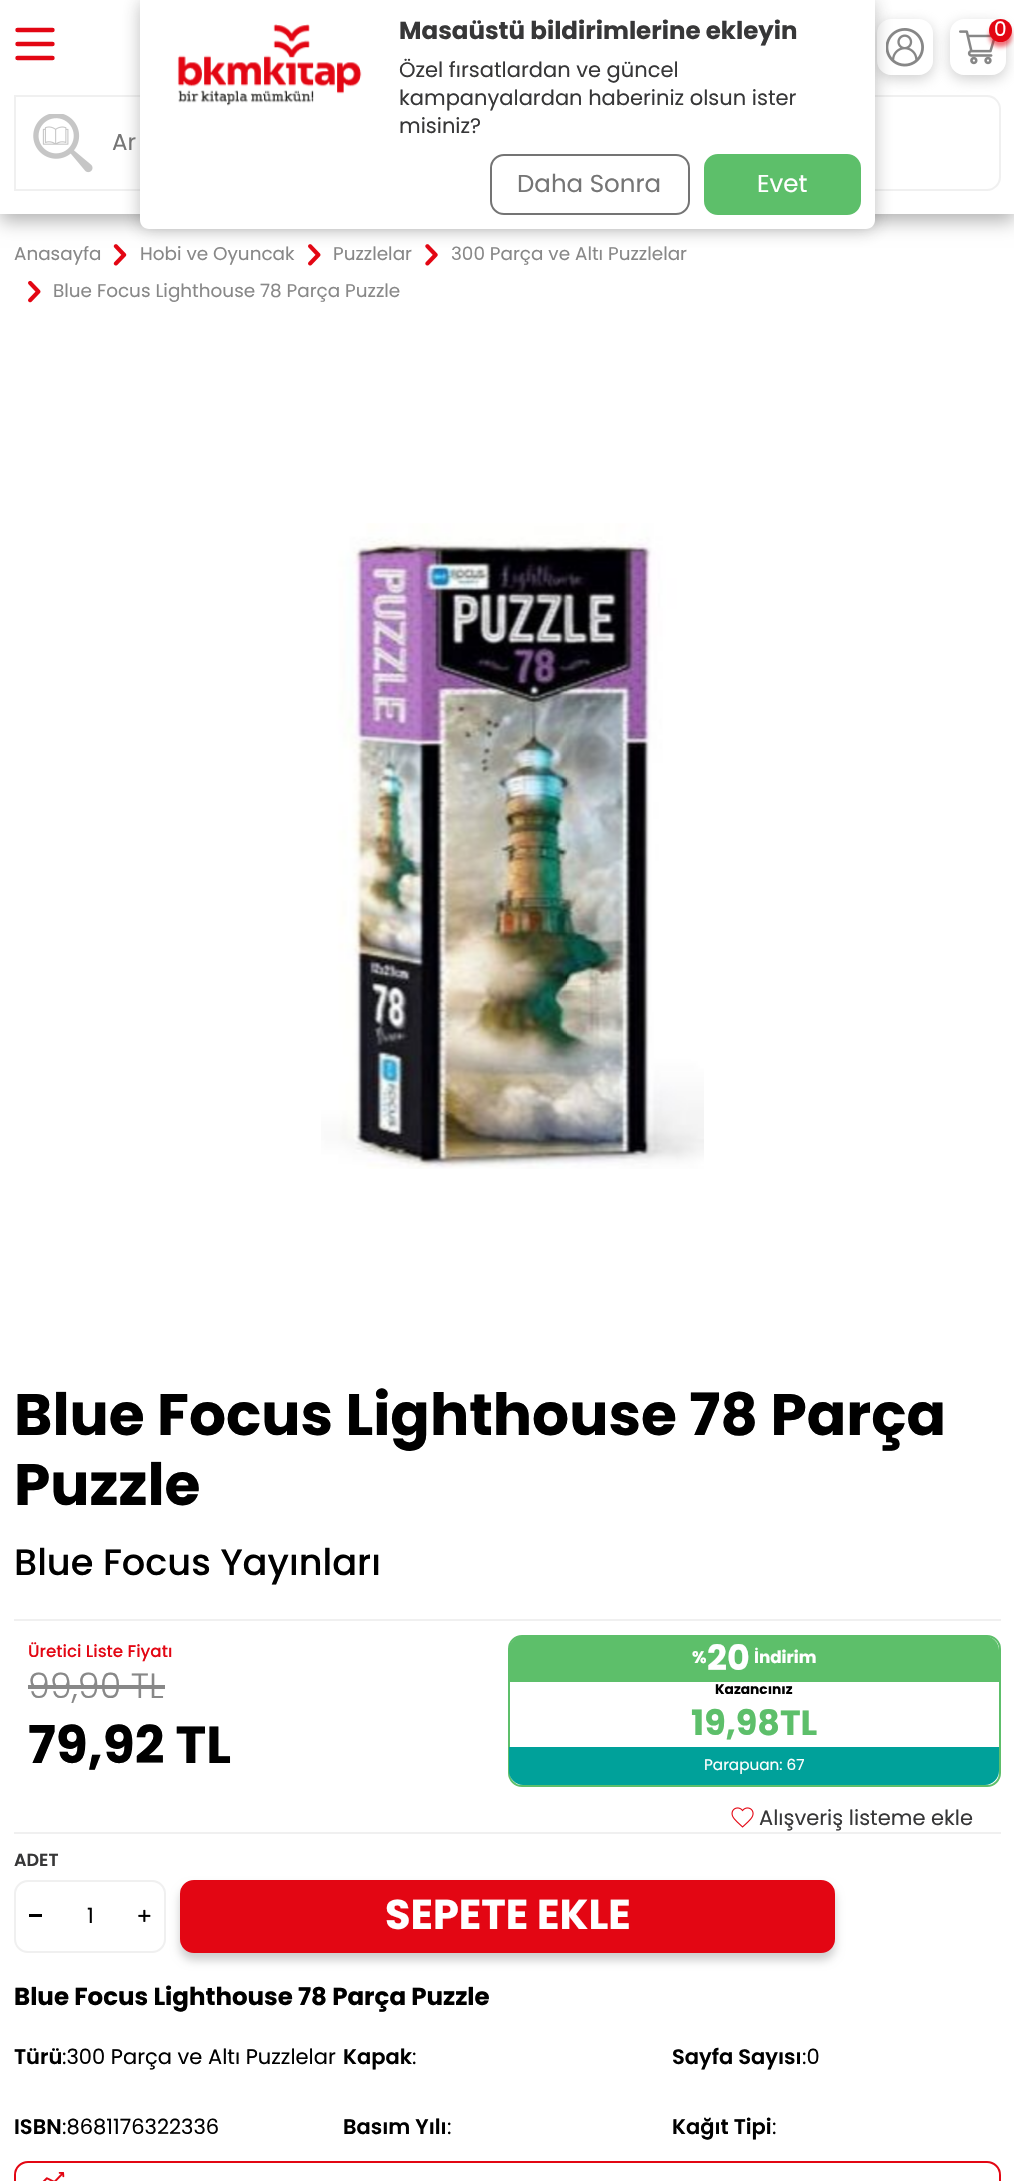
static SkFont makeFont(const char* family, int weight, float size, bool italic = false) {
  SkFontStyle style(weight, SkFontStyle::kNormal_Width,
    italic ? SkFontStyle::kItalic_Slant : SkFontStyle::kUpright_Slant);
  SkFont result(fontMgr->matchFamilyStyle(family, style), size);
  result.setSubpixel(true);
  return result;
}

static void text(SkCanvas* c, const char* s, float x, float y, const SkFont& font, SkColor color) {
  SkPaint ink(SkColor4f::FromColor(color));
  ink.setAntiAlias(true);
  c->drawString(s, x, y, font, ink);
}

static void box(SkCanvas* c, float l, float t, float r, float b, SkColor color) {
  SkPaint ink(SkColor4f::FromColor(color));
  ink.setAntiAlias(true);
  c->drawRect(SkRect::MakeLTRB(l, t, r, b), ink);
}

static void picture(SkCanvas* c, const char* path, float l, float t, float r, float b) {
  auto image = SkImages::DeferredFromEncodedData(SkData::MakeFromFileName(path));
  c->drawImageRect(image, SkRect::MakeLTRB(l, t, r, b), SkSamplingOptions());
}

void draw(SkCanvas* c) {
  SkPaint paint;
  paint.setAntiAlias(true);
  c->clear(0xffffffff);
  picture(c, "img_05.png", 113, 244, 127, 266);
  picture(c, "img_06.png", 308, 244, 321, 266);
  picture(c, "img_07.png", 425, 244, 438, 266);
  c->save();
  c->clipPath(SkPathBuilder(SkPathFillType::kEvenOdd).moveTo(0, 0).lineTo(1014, 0).lineTo(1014, 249).lineTo(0, 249).close().moveTo(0, 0).lineTo(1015, 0).lineTo(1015, 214).lineTo(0, 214).close().detach(), true);
  paint.setColor(0x4d000000);
  paint.setMaskFilter(SkMaskFilter::MakeBlur(kNormal_SkBlurStyle, 9));
  c->drawRect(SkRect::MakeLTRB(0, 7, 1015, 221), paint);
  paint.setMaskFilter(nullptr);
  c->restore();
  paint.setStyle(SkPaint::kStroke_Style);
  paint.setStrokeWidth(2);
  paint.setColor(0xfff0f0f0);
  c->drawPath(SkPathBuilder().moveTo(15, 96).lineTo(987, 96).cubicTo(994, 96, 1000, 102, 1000, 109).lineTo(1000, 177).cubicTo(1000, 184, 994, 190, 987, 190).lineTo(15, 190).close().detach(), paint);
  c->save();
  c->clipPath(SkPathBuilder(SkPathFillType::kEvenOdd).moveTo(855, 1).lineTo(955, 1).lineTo(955, 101).lineTo(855, 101).close().moveTo(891, 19).lineTo(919, 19).cubicTo(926.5f, 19, 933, 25.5f, 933, 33).lineTo(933, 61).cubicTo(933, 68.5f, 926.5f, 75, 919, 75).lineTo(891, 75).cubicTo(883.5f, 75, 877, 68.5f, 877, 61).lineTo(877, 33).cubicTo(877, 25.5f, 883.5f, 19, 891, 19).close().detach(), true);
  paint.setStyle(SkPaint::kFill_Style);
  paint.setColor(0x80a0a0a0);
  paint.setMaskFilter(SkMaskFilter::MakeBlur(kNormal_SkBlurStyle, 7));
  c->drawRoundRect(SkRect::MakeLTRB(877, 23, 933, 79), 14, 14, paint);
  paint.setMaskFilter(nullptr);
  c->restore();
  picture(c, "img_02.png", 886, 28, 924, 67);
  paint.setColor(0x4d282828);
  paint.setMaskFilter(SkMaskFilter::MakeBlur(kNormal_SkBlurStyle, 9));
  c->drawRoundRect(SkRect::MakeLTRB(140, 0, 875, 229), 9, 9, paint);
  paint.setMaskFilter(nullptr);
  paint.setColor(0xffffffff);
  c->drawPath(SkPathBuilder().moveTo(140, 0).lineTo(875, 0).lineTo(875, 220).cubicTo(875, 225, 871, 229, 866, 229).lineTo(149, 229).cubicTo(144, 229, 140, 225, 140, 220).close().detach(), paint);
  picture(c, "img_01.png", 177, 24, 362, 106);
  SkFont face1 = makeFont("Poppins", 700, 24.5f);
  text(c, "Masaüstü bildirimlerine ekleyin", 399, 39, face1, 0xff373738);
  SkFont face2 = makeFont("Poppins", 400, 21);
  text(c, "Özel fırsatlardan ve güncel", 399, 77, face2, 0xff373738);
  text(c, "kampanyalardan haberiniz olsun ister", 399, 105, face2, 0xff373738);
  text(c, "misiniz?", 399, 133, face2, 0xff373738);
  paint.setStyle(SkPaint::kStroke_Style);
  paint.setColor(0xff747474);
  c->drawRoundRect(SkRect::MakeLTRB(491, 155, 689, 214), 13, 13, paint);
  SkFont face3 = makeFont("Poppins", 400, 24.5f);
  text(c, "Daha Sonra", 517, 192, face3, 0xff757575);
  paint.setStyle(SkPaint::kFill_Style);
  paint.setColor(0xff5dbf6a);
  c->drawRoundRect(SkRect::MakeLTRB(705, 155, 860, 214), 13, 13, paint);
  paint.setStyle(SkPaint::kStroke_Style);
  c->drawRoundRect(SkRect::MakeLTRB(705, 155, 860, 214), 13, 13, paint);
  text(c, "Evet", 757, 192, face3, 0xffffffff);
  paint.setStrokeWidth(4.4f);
  paint.setStrokeCap(SkPaint::kRound_Cap);
  paint.setColor(0xffe30613);
  c->drawPath(SkPathBuilder().moveTo(17.5f, 30).lineTo(52.5f, 30).moveTo(17.5f, 44).lineTo(52.5f, 44).moveTo(17.5f, 58).lineTo(52.5f, 58).detach(), paint);
  c->save();
  c->clipPath(SkPathBuilder(SkPathFillType::kEvenOdd).moveTo(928, 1).lineTo(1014, 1).lineTo(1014, 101).lineTo(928, 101).close().moveTo(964, 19).lineTo(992, 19).cubicTo(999.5f, 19, 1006, 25.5f, 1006, 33).lineTo(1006, 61).cubicTo(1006, 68.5f, 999.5f, 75, 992, 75).lineTo(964, 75).cubicTo(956.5f, 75, 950, 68.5f, 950, 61).lineTo(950, 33).cubicTo(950, 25.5f, 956.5f, 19, 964, 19).close().detach(), true);
  paint.setStyle(SkPaint::kFill_Style);
  paint.setColor(0x80a0a0a0);
  paint.setMaskFilter(SkMaskFilter::MakeBlur(kNormal_SkBlurStyle, 7));
  c->drawRoundRect(SkRect::MakeLTRB(950, 23, 1006, 79), 14, 14, paint);
  paint.setMaskFilter(nullptr);
  c->restore();
  picture(c, "img_03.png", 959, 30, 996, 65);
  paint.setColor(0x8fe30613);
  paint.setMaskFilter(SkMaskFilter::MakeBlur(kNormal_SkBlurStyle, 2));
  c->drawRoundRect(SkRect::MakeLTRB(989, 25, 1012, 47), 11, 11, paint);
  paint.setMaskFilter(nullptr);
  paint.setColor(0xffe30613);
  c->drawCircle(1000.5f, 30.5f, 11.5f, paint);
  SkFont face4 = makeFont("Poppins", 400, 20);
  text(c, "0", 994, 36, face4, 0xffffffff);
  picture(c, "img_04.png", 33, 114, 93, 173);
  SkFont face5 = makeFont("Poppins", 400, 23);
  text(c, "Ar", 112, 150, face5, 0xff757575);
  SkFont face6 = makeFont("Poppins", 400, 18.4f);
  text(c, "Anasayfa", 14, 260, face6, 0xff888888);
  text(c, "Hobi ve Oyuncak", 140, 260, face6, 0xff888888);
  text(c, "Puzzlelar", 333, 260, face6, 0xff888888);
  text(c, "300 Parça ve Altı Puzzlelar", 451, 260, face6, 0xff888888);
  picture(c, "img_08.png", 28, 280, 41, 303);
  text(c, "Blue Focus Lighthouse 78 Parça Puzzle", 53, 297, face6, 0xff888888);
  picture(c, "img_09.png", 321, 523, 704, 1169);
  SkFont face7 = makeFont("Poppins", 700, 58.25f);
  text(c, "Blue Focus Lighthouse 78 Parça", 14, 1435, face7, 0xff000000);
  text(c, "Puzzle", 14, 1505, face7, 0xff000000);
  SkFont face8 = makeFont("Poppins", 500, 36.75f);
  text(c, "Blue Focus Yayınları", 14, 1575, face8, 0xff000000);
  box(c, 14, 1619, 1001, 1621, 0xfff0f0f0);
  box(c, 14, 1832, 1001, 1834, 0xfff0f0f0);
  SkFont face9 = makeFont("Poppins", 500, 16.75f);
  text(c, "Üretici Liste Fiyatı", 28, 1657, face9, 0xffe30613);
  SkFont face10 = makeFont("Poppins", 300, 35);
  text(c, "99,90 TL", 28, 1698, face10, 0xff888888);
  box(c, 28, 1685, 165, 1689, 0xff888888);
  SkFont face11 = makeFont("Poppins", 700, 52);
  text(c, "79,92 TL", 28, 1763, face11, 0xff000000);
  paint.setStyle(SkPaint::kStroke_Style);
  paint.setStrokeWidth(2);
  paint.setStrokeCap(SkPaint::kButt_Cap);
  paint.setColor(0xff5dbf6a);
  c->drawRoundRect(SkRect::MakeLTRB(509, 1636, 1000, 1786), 13, 13, paint);
  paint.setStyle(SkPaint::kFill_Style);
  c->drawPath(SkPathBuilder().moveTo(523, 1636).lineTo(985, 1636).cubicTo(992.5f, 1636, 999, 1642.5f, 999, 1650).lineTo(999, 1682).lineTo(509, 1682).lineTo(509, 1650).cubicTo(509, 1642.5f, 515.5f, 1636, 523, 1636).close().detach(), paint);
  SkFont face12 = makeFont("Poppins", 700, 16.75f);
  text(c, "%", 692, 1663, face12, 0xffffffff);
  SkFont face13 = makeFont("Poppins", 700, 35);
  text(c, "20", 707, 1670, face13, 0xffffffff);
  text(c, "İndirim", 754, 1663, face12, 0xffffffff);
  SkFont face14 = makeFont("Poppins", 700, 13.75f);
  text(c, "Kazancınız", 715, 1694, face14, 0xff000000);
  text(c, "19,98TL", 691, 1735, face13, 0xff5dbf6a);
  paint.setColor(0xff00a19a);
  c->drawPath(SkPathBuilder().moveTo(509, 1747).lineTo(999, 1747).lineTo(999, 1771).cubicTo(999, 1778.5f, 992.5f, 1785, 985, 1785).lineTo(523, 1785).cubicTo(515.5f, 1785, 509, 1778.5f, 509, 1771).close().detach(), paint);
  SkFont face15 = makeFont("Poppins", 400, 15.25f);
  text(c, "Parapuan: 67", 704, 1770, face15, 0xffffffff);
  picture(c, "img_10.png", 731, 1807, 754, 1828);
  text(c, "Alışveriş listeme ekle", 759, 1825, face2, 0xff373738);
  SkFont face16 = makeFont("Poppins", 600, 17.5f);
  text(c, "ADET", 14, 1866, face16, 0xff373738);
  paint.setColor(0x33000000);
  paint.setMaskFilter(SkMaskFilter::MakeBlur(kNormal_SkBlurStyle, 5));
  c->drawRoundRect(SkRect::MakeLTRB(180, 1887, 835, 1960), 14, 14, paint);
  paint.setMaskFilter(nullptr);
  paint.setStyle(SkPaint::kStroke_Style);
  paint.setColor(0xfff0f0f0);
  c->drawRoundRect(SkRect::MakeLTRB(15, 1881, 165, 1952), 13, 13, paint);
  box(c, 29, 1914, 42, 1917, 0xff000000);
  text(c, "1", 87, 1923, face2, 0xff000000);
  picture(c, "img_11.png", 138, 1909, 151, 1922);
  paint.setStyle(SkPaint::kFill_Style);
  paint.setColor(0xffe30613);
  c->drawRoundRect(SkRect::MakeLTRB(181, 1881, 834, 1952), 13, 13, paint);
  paint.setStyle(SkPaint::kStroke_Style);
  c->drawRoundRect(SkRect::MakeLTRB(181, 1881, 834, 1952), 13, 13, paint);
  SkFont face17 = makeFont("Poppins", 700, 41.5f);
  text(c, "SEPETE EKLE", 385, 1929, face17, 0xffffffff);
  text(c, "Blue Focus Lighthouse 78 Parça Puzzle", 14, 2005, face1, 0xff000000);
  SkFont face18 = makeFont("Poppins", 600, 21);
  text(c, "Türü", 14, 2064, face18, 0xff000000);
  text(c, ":300 Parça ve Altı Puzzlelar", 62, 2064, face2, 0xff000000);
  text(c, "Kapak", 343, 2064, face18, 0xff000000);
  text(c, ":", 412, 2064, face2, 0xff000000);
  text(c, "Sayfa Sayısı", 672, 2064, face18, 0xff000000);
  text(c, ":0", 802, 2064, face2, 0xff000000);
  text(c, "ISBN", 14, 2134, face18, 0xff000000);
  text(c, ":8681176322336", 62, 2134, face2, 0xff000000);
  text(c, "Basım Yılı", 343, 2134, face18, 0xff000000);
  text(c, ":", 447, 2134, face2, 0xff000000);
  text(c, "Kağıt Tipi", 672, 2134, face18, 0xff000000);
  text(c, ":", 772, 2134, face2, 0xff000000);
  c->drawRoundRect(SkRect::MakeLTRB(15, 2162, 1000, 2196), 13, 13, paint);
  picture(c, "img_12.png", 42, 2172, 65, 2181);
}
